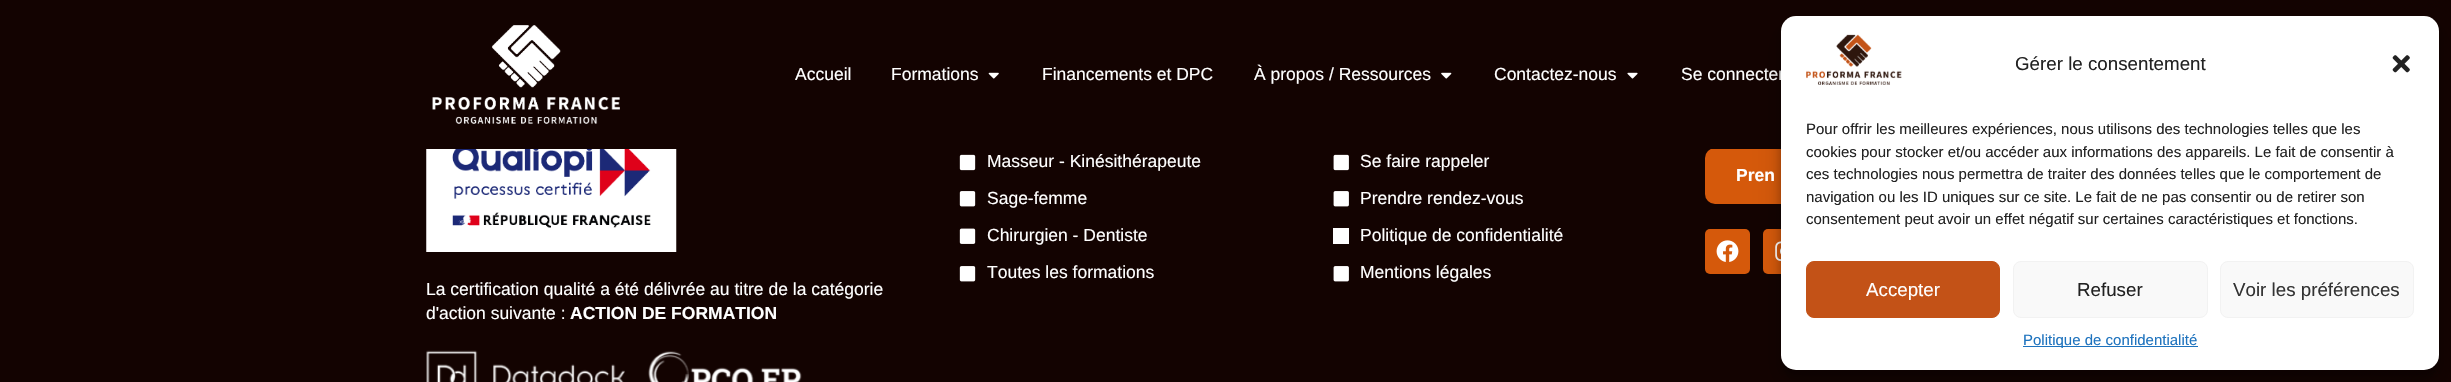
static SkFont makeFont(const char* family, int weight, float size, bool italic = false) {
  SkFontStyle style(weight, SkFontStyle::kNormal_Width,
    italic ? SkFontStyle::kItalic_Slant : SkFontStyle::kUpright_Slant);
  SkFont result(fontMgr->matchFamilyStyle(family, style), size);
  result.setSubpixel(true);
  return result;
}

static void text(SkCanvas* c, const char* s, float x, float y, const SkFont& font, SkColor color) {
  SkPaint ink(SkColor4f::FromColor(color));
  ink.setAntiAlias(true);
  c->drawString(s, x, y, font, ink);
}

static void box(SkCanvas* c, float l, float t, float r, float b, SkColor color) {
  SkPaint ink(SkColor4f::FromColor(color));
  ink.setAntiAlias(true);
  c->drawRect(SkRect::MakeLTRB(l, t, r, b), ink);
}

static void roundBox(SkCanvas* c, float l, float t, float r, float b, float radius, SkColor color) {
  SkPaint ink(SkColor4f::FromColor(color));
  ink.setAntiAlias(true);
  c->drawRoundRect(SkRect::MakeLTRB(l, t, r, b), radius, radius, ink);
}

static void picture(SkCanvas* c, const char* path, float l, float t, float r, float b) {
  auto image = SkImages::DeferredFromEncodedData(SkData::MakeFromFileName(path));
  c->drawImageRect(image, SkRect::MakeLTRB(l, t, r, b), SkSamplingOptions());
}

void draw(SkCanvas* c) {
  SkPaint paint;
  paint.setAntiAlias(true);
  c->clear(0xff130301);
  picture(c, "img_01.png", 432, 25, 620, 124);
  SkFont face1 = makeFont("Liberation Sans", 400, 17.5f);
  text(c, "Accueil", 795, 80, face1, 0xffffffff);
  text(c, "Formations", 891, 80, face1, 0xffffffff);
  picture(c, "img_02.png", 988, 72, 999, 79);
  text(c, "Financements et DPC", 1042, 80, face1, 0xffffffff);
  text(c, "À propos / Ressources", 1254, 80, face1, 0xffffffff);
  picture(c, "img_03.png", 1441, 72, 1452, 79);
  text(c, "Contactez-nous", 1494, 80, face1, 0xffffffff);
  picture(c, "img_04.png", 1627, 72, 1638, 79);
  text(c, "Se connecter", 1681, 80, face1, 0xffffffff);
  roundBox(c, 1705, 148, 1964, 204, 10, 0xffd5590b);
  box(c, 1710, 148, 1959, 149, 0xff130301);
  roundBox(c, 1763, 229, 1808, 274, 5, 0xffd5590b);
  picture(c, "img_13.png", 1775, 241, 1781, 261);
  paint.setColor(0x3b000000);
  paint.setMaskFilter(SkMaskFilter::MakeBlur(kNormal_SkBlurStyle, 4));
  c->drawRoundRect(SkRect::MakeLTRB(1781, 24, 2439, 378), 15, 15, paint);
  paint.setMaskFilter(nullptr);
  roundBox(c, 1705, 229, 1750, 274, 5, 0xffd5590b);
  paint.setColor(0x30000000);
  paint.setMaskFilter(SkMaskFilter::MakeBlur(kNormal_SkBlurStyle, 12.5f));
  c->drawRoundRect(SkRect::MakeLTRB(1781, 29, 2439, 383), 15, 15, paint);
  paint.setMaskFilter(nullptr);
  roundBox(c, 1781, 16, 2439, 370, 15, 0xffffffff);
  picture(c, "img_05.png", 1806, 34, 1902, 85);
  SkFont face2 = makeFont("Liberation Sans", 400, 18.75f);
  text(c, "Gérer le consentement", 2015, 70, face2, 0xff222222);
  picture(c, "img_06.png", 2392, 55, 2410, 73);
  SkFont face3 = makeFont("Liberation Sans", 400, 15);
  text(c, "Pour offrir les meilleures expériences, nous utilisons des technologies telles que les", 1806, 134, face3, 0xff222222);
  text(c, "cookies pour stocker et/ou accéder aux informations des appareils. Le fait de consentir à", 1806, 157, face3, 0xff222222);
  text(c, "ces technologies nous permettra de traiter des données telles que le comportement de", 1806, 179, face3, 0xff222222);
  text(c, "navigation ou les ID uniques sur ce site. Le fait de ne pas consentir ou de retirer son", 1806, 202, face3, 0xff222222);
  text(c, "consentement peut avoir un effet négatif sur certaines caractéristiques et fonctions.", 1806, 224, face3, 0xff222222);
  paint.setColor(0xffc35217);
  c->drawRoundRect(SkRect::MakeLTRB(1806.5f, 261.5f, 1999.5f, 317.5f), 7.5f, 7.5f, paint);
  paint.setStyle(SkPaint::kStroke_Style);
  paint.setStrokeWidth(1);
  c->drawRoundRect(SkRect::MakeLTRB(1806.5f, 261.5f, 1999.5f, 317.5f), 7.5f, 7.5f, paint);
  text(c, "Accepter", 1866, 296, face2, 0xffffffff);
  paint.setStyle(SkPaint::kFill_Style);
  paint.setColor(0xfff9f9f9);
  c->drawRoundRect(SkRect::MakeLTRB(2013.5f, 261.5f, 2207.5f, 317.5f), 7.5f, 7.5f, paint);
  paint.setStyle(SkPaint::kStroke_Style);
  paint.setColor(0xfff2f2f2);
  c->drawRoundRect(SkRect::MakeLTRB(2013.5f, 261.5f, 2207.5f, 317.5f), 7.5f, 7.5f, paint);
  text(c, "Refuser", 2077, 296, face2, 0xff222222);
  paint.setStyle(SkPaint::kFill_Style);
  paint.setColor(0xfff9f9f9);
  c->drawRoundRect(SkRect::MakeLTRB(2220.5f, 261.5f, 2413.5f, 317.5f), 7.5f, 7.5f, paint);
  paint.setStyle(SkPaint::kStroke_Style);
  paint.setColor(0xfff2f2f2);
  c->drawRoundRect(SkRect::MakeLTRB(2220.5f, 261.5f, 2413.5f, 317.5f), 7.5f, 7.5f, paint);
  text(c, "Voir les préférences", 2233, 296, face2, 0xff333333);
  box(c, 2023, 346, 2198, 347, 0xff1e73be);
  text(c, "Politique de confidentialité", 2023, 345, face3, 0xff1e73be);
  picture(c, "img_07.png", 959, 154, 976, 171);
  text(c, "Masseur - Kinésithérapeute", 987, 167, face1, 0xffffffff);
  picture(c, "img_08.png", 959, 191, 976, 207);
  text(c, "Sage-femme", 987, 204, face1, 0xffffffff);
  picture(c, "img_09.png", 959, 228, 976, 244);
  text(c, "Chirurgien - Dentiste", 987, 241, face1, 0xffffffff);
  picture(c, "img_08.png", 959, 266, 976, 282);
  text(c, "Toutes les formations", 987, 278, face1, 0xffffffff);
  picture(c, "img_10.png", 1333, 154, 1349, 171);
  text(c, "Se faire rappeler", 1360, 167, face1, 0xffffffff);
  picture(c, "img_11.png", 1333, 191, 1349, 207);
  text(c, "Prendre rendez-vous", 1360, 204, face1, 0xffffffff);
  box(c, 1333, 228, 1349, 244, 0xffffffff);
  text(c, "Politique de confidentialité", 1360, 241, face1, 0xffffffff);
  picture(c, "img_11.png", 1333, 266, 1349, 282);
  text(c, "Mentions légales", 1360, 278, face1, 0xffffffff);
  SkFont face4 = makeFont("Liberation Sans", 700, 17.5f);
  text(c, "Pren", 1736, 181, face4, 0xffffffff);
  picture(c, "img_12.png", 1716, 240, 1739, 262);
  picture(c, "img_14.png", 426, 149, 677, 252);
  text(c, "La certification qualité a été délivrée au titre de la catégorie", 426, 295, face1, 0xffffffff);
  text(c, "d'action suivante :", 426, 319, face1, 0xffffffff);
  text(c, "ACTION DE FORMATION", 570, 319, face4, 0xffffffff);
  picture(c, "img_15.png", 426, 350, 802, 382);
}
